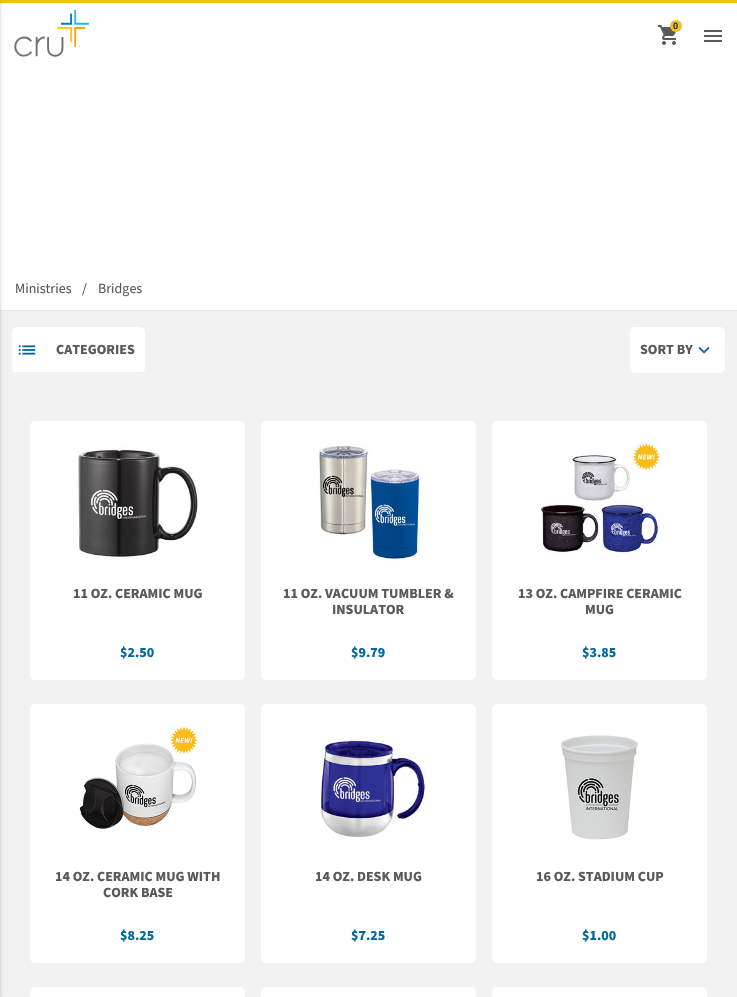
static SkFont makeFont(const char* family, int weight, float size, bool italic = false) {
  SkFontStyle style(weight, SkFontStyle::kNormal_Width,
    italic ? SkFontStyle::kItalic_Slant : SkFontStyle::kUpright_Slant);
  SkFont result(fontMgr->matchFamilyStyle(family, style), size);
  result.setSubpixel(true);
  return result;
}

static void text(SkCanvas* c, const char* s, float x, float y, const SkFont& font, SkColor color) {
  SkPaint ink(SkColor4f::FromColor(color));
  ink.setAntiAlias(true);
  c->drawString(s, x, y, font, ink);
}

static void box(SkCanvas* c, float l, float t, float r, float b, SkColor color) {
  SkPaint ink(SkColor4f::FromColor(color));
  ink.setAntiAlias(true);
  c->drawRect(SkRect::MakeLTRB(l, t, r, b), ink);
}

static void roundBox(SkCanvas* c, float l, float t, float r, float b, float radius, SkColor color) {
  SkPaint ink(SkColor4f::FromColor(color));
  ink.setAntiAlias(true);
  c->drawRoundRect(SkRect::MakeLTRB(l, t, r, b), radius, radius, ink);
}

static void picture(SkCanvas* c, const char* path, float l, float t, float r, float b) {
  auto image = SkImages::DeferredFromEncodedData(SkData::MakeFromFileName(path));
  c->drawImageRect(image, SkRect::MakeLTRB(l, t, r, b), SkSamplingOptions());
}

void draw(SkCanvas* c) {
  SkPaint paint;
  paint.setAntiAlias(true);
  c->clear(0xffffffff);
  box(c, 0, 0, 737, 3, 0xfff5be19);
  box(c, 0, 311, 737, 997, 0xfff2f2f2);
  box(c, 0, 310, 737, 311, 0xffe6e6e6);
  paint.setColor(0x1f000000);
  paint.setMaskFilter(SkMaskFilter::MakeBlur(kNormal_SkBlurStyle, 2.5f));
  c->drawRect(SkRect::MakeLTRB(-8, 1, 0, 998), paint);
  paint.setMaskFilter(nullptr);
  paint.setColor(0x24000000);
  paint.setMaskFilter(SkMaskFilter::MakeBlur(kNormal_SkBlurStyle, 1));
  c->drawRect(SkRect::MakeLTRB(-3, 2, 0, 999), paint);
  paint.setMaskFilter(nullptr);
  picture(c, "img_01.png", 704, 30, 722, 42);
  picture(c, "img_02.png", 14, 10, 89, 57);
  picture(c, "img_03.png", 658, 25, 677, 45);
  paint.setColor(0xfff5be19);
  c->drawCircle(676, 26, 6, paint);
  SkFont face1 = makeFont("Roboto", 600, 9);
  text(c, "0", 673, 29, face1, 0xff143055);
  SkFont face2 = makeFont("Source Sans Pro", 400, 14);
  text(c, "Ministries", 15, 293, face2, 0xff5a5a5a);
  text(c, "/", 82, 293, face2, 0xff5a5a5a);
  text(c, "Bridges", 98, 293, face2, 0xff5a5a5a);
  roundBox(c, 12, 327, 145, 373, 5, 0xffffffff);
  box(c, 15, 372, 143, 373, 0x80e2e2e2);
  picture(c, "img_04.png", 18, 345, 36, 355);
  SkFont face3 = makeFont("Source Sans Pro", 700, 14);
  text(c, "CATEGORIES", 56, 354, face3, 0xff5a5a5a);
  roundBox(c, 630, 327, 725, 373, 5, 0xffffffff);
  text(c, "SORT BY", 640, 354, face3, 0xff5a5a5a);
  picture(c, "img_05.png", 698, 347, 710, 354);
  roundBox(c, 30, 421, 245, 680, 5, 0xffffffff);
  picture(c, "img_06.png", 76, 446, 199, 557);
  text(c, "11 OZ. CERAMIC MUG", 73, 598, face3, 0xff5a5a5a);
  text(c, "$2.50", 120, 657, face3, 0xff00699e);
  roundBox(c, 261, 421, 476, 680, 5, 0xffffffff);
  picture(c, "img_07.png", 317, 444, 421, 561);
  text(c, "11 OZ. VACUUM TUMBLER &", 283, 598, face3, 0xff5a5a5a);
  text(c, "INSULATOR", 332, 614, face3, 0xff5a5a5a);
  text(c, "$9.79", 351, 657, face3, 0xff00699e);
  roundBox(c, 492, 421, 707, 680, 5, 0xffffffff);
  picture(c, "img_08.png", 541, 441, 662, 556);
  text(c, "13 OZ. CAMPFIRE CERAMIC", 518, 598, face3, 0xff5a5a5a);
  text(c, "MUG", 585, 614, face3, 0xff5a5a5a);
  text(c, "$3.85", 582, 657, face3, 0xff00699e);
  roundBox(c, 30, 704, 245, 963, 5, 0xffffffff);
  picture(c, "img_09.png", 79, 726, 198, 829);
  text(c, "14 OZ. CERAMIC MUG WITH", 55, 881, face3, 0xff5a5a5a);
  text(c, "CORK BASE", 103, 897, face3, 0xff5a5a5a);
  text(c, "$8.25", 120, 940, face3, 0xff00699e);
  roundBox(c, 261, 704, 476, 963, 5, 0xffffffff);
  picture(c, "img_10.png", 321, 739, 426, 838);
  text(c, "14 OZ. DESK MUG", 315, 881, face3, 0xff5a5a5a);
  text(c, "$7.25", 351, 940, face3, 0xff00699e);
  roundBox(c, 492, 704, 707, 963, 5, 0xffffffff);
  picture(c, "img_11.png", 561, 735, 638, 840);
  text(c, "16 OZ. STADIUM CUP", 536, 881, face3, 0xff5a5a5a);
  text(c, "$1.00", 582, 940, face3, 0xff00699e);
  roundBox(c, 30, 987, 245, 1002, 5, 0xffffffff);
  roundBox(c, 261, 987, 476, 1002, 5, 0xffffffff);
  roundBox(c, 492, 987, 707, 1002, 5, 0xffffffff);
}
